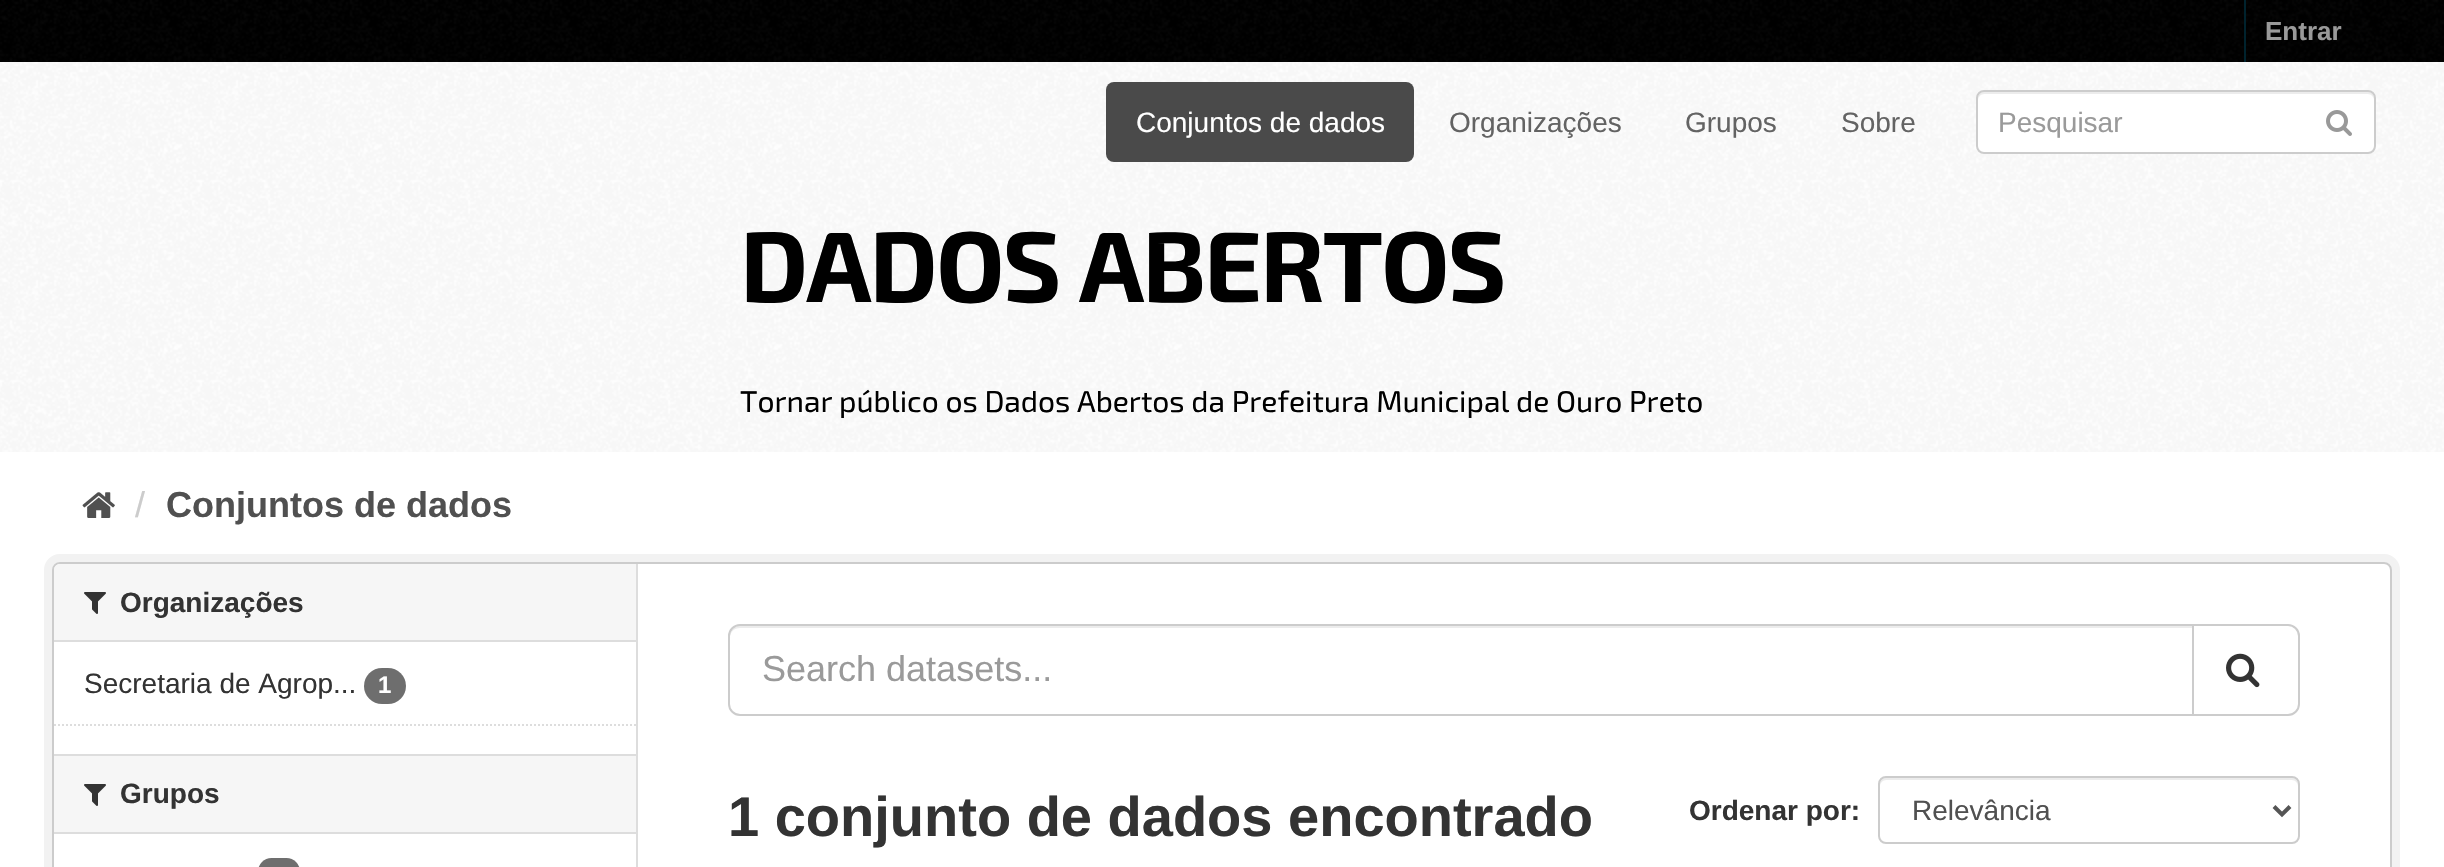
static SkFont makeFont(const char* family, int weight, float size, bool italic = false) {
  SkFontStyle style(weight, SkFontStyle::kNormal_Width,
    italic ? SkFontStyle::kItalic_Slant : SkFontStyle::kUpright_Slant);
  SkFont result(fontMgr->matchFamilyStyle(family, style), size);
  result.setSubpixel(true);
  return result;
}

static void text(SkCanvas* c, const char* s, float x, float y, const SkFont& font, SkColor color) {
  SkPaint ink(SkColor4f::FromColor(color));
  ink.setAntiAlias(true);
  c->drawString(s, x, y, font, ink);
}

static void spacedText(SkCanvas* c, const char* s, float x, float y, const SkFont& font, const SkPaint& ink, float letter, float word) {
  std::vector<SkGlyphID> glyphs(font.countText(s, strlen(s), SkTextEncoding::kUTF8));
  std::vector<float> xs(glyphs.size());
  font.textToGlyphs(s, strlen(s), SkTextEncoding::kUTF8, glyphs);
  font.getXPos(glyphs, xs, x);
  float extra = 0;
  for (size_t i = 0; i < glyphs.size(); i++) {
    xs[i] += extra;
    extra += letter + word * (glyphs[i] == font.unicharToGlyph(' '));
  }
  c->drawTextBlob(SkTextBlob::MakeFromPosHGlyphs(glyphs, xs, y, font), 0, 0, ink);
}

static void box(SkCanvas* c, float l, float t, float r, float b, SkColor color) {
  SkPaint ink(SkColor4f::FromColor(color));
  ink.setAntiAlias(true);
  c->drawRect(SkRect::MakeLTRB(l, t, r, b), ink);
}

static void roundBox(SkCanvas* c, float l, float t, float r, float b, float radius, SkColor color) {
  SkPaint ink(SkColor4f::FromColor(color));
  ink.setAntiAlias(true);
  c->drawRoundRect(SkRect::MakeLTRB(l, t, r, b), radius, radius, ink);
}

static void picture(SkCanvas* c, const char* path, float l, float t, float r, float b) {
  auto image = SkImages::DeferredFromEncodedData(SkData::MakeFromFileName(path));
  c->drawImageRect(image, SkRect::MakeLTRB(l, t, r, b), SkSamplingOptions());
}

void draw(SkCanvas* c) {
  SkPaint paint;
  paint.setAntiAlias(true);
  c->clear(0xff000000);
  picture(c, "img_01.png", 0, 0, 2444, 62);
  box(c, 2244, 0, 2246, 62, 0xff00232e);
  SkFont face1 = makeFont("Liberation Sans", 700, 26);
  text(c, "Entrar", 2265, 40, face1, 0xff9a9a9a);
  box(c, 0, 62, 2444, 867, 0xffffffff);
  picture(c, "img_02.png", 0, 62, 2444, 452);
  roundBox(c, 1106, 82, 1414, 162, 8, 0xff4a4a4a);
  SkFont face2 = makeFont("Liberation Sans", 400, 28);
  text(c, "Conjuntos de dados", 1136, 132, face2, 0xffffffff);
  text(c, "Organizações", 1449, 132, face2, 0xff636363);
  text(c, "Grupos", 1685, 132, face2, 0xff636363);
  text(c, "Sobre", 1841, 132, face2, 0xff636363);
  roundBox(c, 1976, 90, 2376, 154, 8, 0xffffffff);
  paint.setColor(0xffececec);
  c->drawPath(SkPathBuilder().moveTo(1984, 94).lineTo(2368, 94).cubicTo(2371, 94, 2374, 97, 2374, 100).cubicTo(2374, 96, 2373, 92, 2368, 92).lineTo(1984, 92).cubicTo(1979, 92, 1978, 96, 1978, 100).cubicTo(1978, 97, 1981, 94, 1984, 94).close().detach(), paint);
  paint.setStyle(SkPaint::kStroke_Style);
  paint.setStrokeWidth(2);
  paint.setColor(0xffcccccc);
  c->drawRoundRect(SkRect::MakeLTRB(1977, 91, 2375, 153), 7, 7, paint);
  text(c, "Pesquisar", 1998, 132, face2, 0xff9a9a9a);
  picture(c, "img_03.png", 2326, 110, 2352, 136);
  SkFont face3 = makeFont("Exo 2", 700, 100);
  paint.setStyle(SkPaint::kFill_Style);
  paint.setColor(0xff000000);
  spacedText(c, "DADOS ABERTOS", 740, 302, face3, paint, -2, 0);
  SkFont face4 = makeFont("Exo 2", 400, 30);
  text(c, "Tornar público os Dados Abertos da Prefeitura Municipal de Ouro Preto", 740, 412, face4, 0xff000000);
  picture(c, "img_04.png", 82, 492, 115, 518);
  SkFont face5 = makeFont("Liberation Sans", 400, 36);
  text(c, "/", 135, 517, face5, 0xffcccccc);
  SkFont face6 = makeFont("Liberation Sans", 700, 36);
  text(c, "Conjuntos de dados", 166, 517, face6, 0xff505050);
  paint.setStyle(SkPaint::kStroke_Style);
  paint.setStrokeWidth(8);
  paint.setColor(0xfff2f2f2);
  c->drawRoundRect(SkRect::MakeLTRB(48, 558, 2396, 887), 12, 12, paint);
  paint.setStyle(SkPaint::kFill_Style);
  paint.setColor(0xffffffff);
  c->drawRoundRect(SkRect::MakeLTRB(53, 563, 2391, 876), 7, 7, paint);
  paint.setStyle(SkPaint::kStroke_Style);
  paint.setStrokeWidth(2);
  paint.setColor(0xffcccccc);
  c->drawRoundRect(SkRect::MakeLTRB(53, 563, 2391, 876), 7, 7, paint);
  paint.setStyle(SkPaint::kFill_Style);
  paint.setColor(0xfff6f6f6);
  c->drawPath(SkPathBuilder().moveTo(60, 564).lineTo(636, 564).lineTo(636, 642).lineTo(54, 642).lineTo(54, 570).cubicTo(54, 566.5f, 56.5f, 564, 60, 564).close().detach(), paint);
  box(c, 54, 640, 636, 642, 0xffdddddd);
  picture(c, "img_05.png", 84, 592, 106, 614);
  SkFont face7 = makeFont("Liberation Sans", 700, 28);
  text(c, "Organizações", 120, 612, face7, 0xff333333);
  text(c, "Secretaria de Agrop...", 84, 693, face2, 0xff333333);
  roundBox(c, 364, 668, 406, 704, 18, 0xff6e6e6e);
  SkFont face8 = makeFont("Liberation Sans", 700, 24);
  text(c, "1", 378, 693, face8, 0xffffffff);
  paint.setStyle(SkPaint::kStroke_Style);
  paint.setColor(0xffdddddd);
  paint.setPathEffect(SkDashPathEffect::Make({{2, 2}}, 0));
  c->drawPath(SkPathBuilder().moveTo(54, 725).lineTo(636, 725).detach(), paint);
  paint.setPathEffect(nullptr);
  box(c, 54, 756, 636, 832, 0xfff6f6f6);
  box(c, 54, 754, 636, 756, 0xffdddddd);
  box(c, 54, 832, 636, 834, 0xffdddddd);
  picture(c, "img_05.png", 84, 784, 106, 806);
  text(c, "Grupos", 120, 803, face7, 0xff333333);
  roundBox(c, 258, 858, 300, 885, 18, 0xff6e6e6e);
  box(c, 636, 564, 638, 867, 0xffdddddd);
  paint.setStyle(SkPaint::kFill_Style);
  paint.setColor(0xffececec);
  c->drawPath(SkPathBuilder().moveTo(740, 628).lineTo(2192, 628).lineTo(2192, 626).lineTo(740, 626).cubicTo(733, 626, 730, 632, 730, 638).cubicTo(730, 632, 734, 628, 740, 628).close().detach(), paint);
  paint.setStyle(SkPaint::kStroke_Style);
  paint.setColor(0xffcccccc);
  c->drawPath(SkPathBuilder().moveTo(740, 625).lineTo(2193, 625).lineTo(2193, 715).lineTo(740, 715).cubicTo(734, 715, 729, 710, 729, 704).lineTo(729, 636).cubicTo(729, 630, 734, 625, 740, 625).close().detach(), paint);
  text(c, "Search datasets...", 762, 681, face5, 0xff9a9a9a);
  paint.setStyle(SkPaint::kFill_Style);
  paint.setColor(0xffffffff);
  c->drawPath(SkPathBuilder().moveTo(2193, 625).lineTo(2288, 625).cubicTo(2294, 625, 2299, 630, 2299, 636).lineTo(2299, 704).cubicTo(2299, 710, 2294, 715, 2288, 715).lineTo(2193, 715).close().detach(), paint);
  paint.setStyle(SkPaint::kStroke_Style);
  paint.setColor(0xffcccccc);
  c->drawPath(SkPathBuilder().moveTo(2193, 625).lineTo(2288, 625).cubicTo(2294, 625, 2299, 630, 2299, 636).lineTo(2299, 704).cubicTo(2299, 710, 2294, 715, 2288, 715).lineTo(2193, 715).close().detach(), paint);
  picture(c, "img_06.png", 2226, 653, 2260, 688);
  SkFont face9 = makeFont("Liberation Sans", 700, 56);
  text(c, "1 conjunto de dados encontrado", 728, 836, face9, 0xff333333);
  text(c, "Ordenar por:", 1689, 820, face7, 0xff333333);
  paint.setStyle(SkPaint::kFill_Style);
  paint.setColor(0xffececec);
  c->drawPath(SkPathBuilder().moveTo(1886, 780).lineTo(2292, 780).cubicTo(2295, 780, 2298, 783, 2298, 786).lineTo(2298, 784).cubicTo(2298, 781, 2295, 778, 2292, 778).lineTo(1886, 778).cubicTo(1883, 778, 1880, 781, 1880, 784).lineTo(1880, 786).cubicTo(1880, 783, 1883, 780, 1886, 780).close().detach(), paint);
  paint.setStyle(SkPaint::kStroke_Style);
  paint.setColor(0xffcccccc);
  c->drawRoundRect(SkRect::MakeLTRB(1879, 777, 2299, 843), 7, 7, paint);
  paint.setStrokeWidth(4);
  paint.setColor(0xff555555);
  c->drawPath(SkPathBuilder().moveTo(2274, 806.5f).lineTo(2282, 814.5f).lineTo(2290, 806.5f).detach(), paint);
  text(c, "Relevância", 1912, 820, face2, 0xff505050);
}
